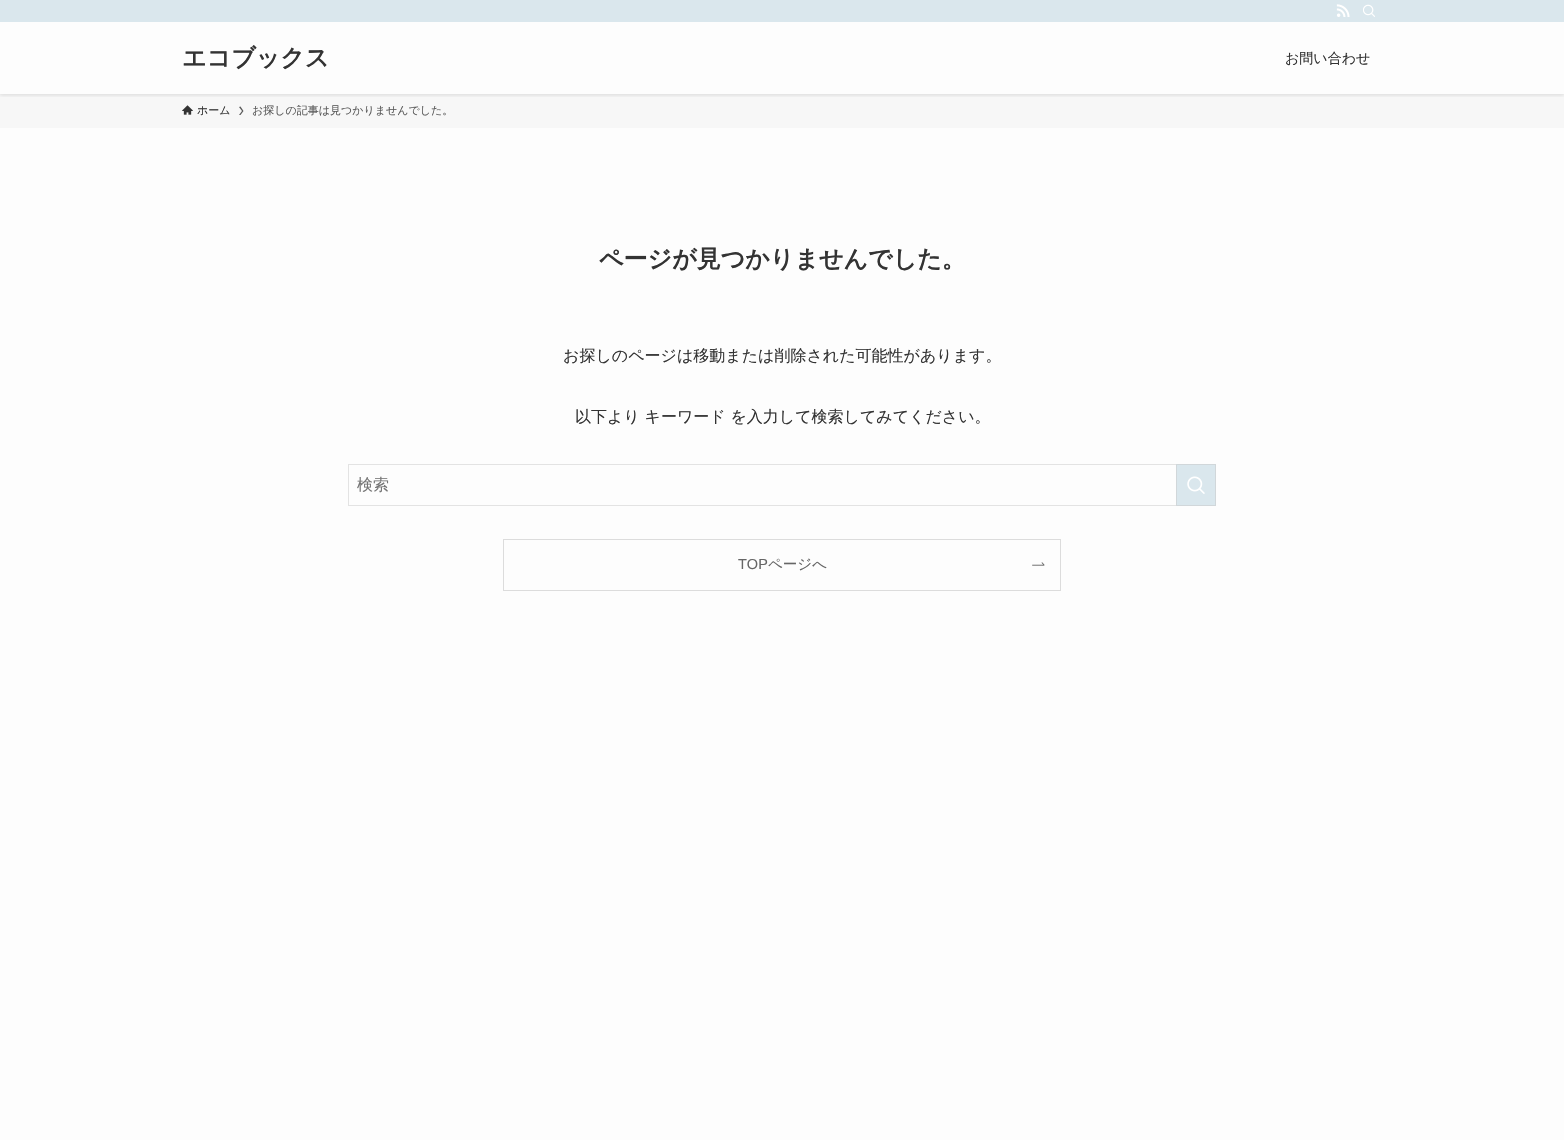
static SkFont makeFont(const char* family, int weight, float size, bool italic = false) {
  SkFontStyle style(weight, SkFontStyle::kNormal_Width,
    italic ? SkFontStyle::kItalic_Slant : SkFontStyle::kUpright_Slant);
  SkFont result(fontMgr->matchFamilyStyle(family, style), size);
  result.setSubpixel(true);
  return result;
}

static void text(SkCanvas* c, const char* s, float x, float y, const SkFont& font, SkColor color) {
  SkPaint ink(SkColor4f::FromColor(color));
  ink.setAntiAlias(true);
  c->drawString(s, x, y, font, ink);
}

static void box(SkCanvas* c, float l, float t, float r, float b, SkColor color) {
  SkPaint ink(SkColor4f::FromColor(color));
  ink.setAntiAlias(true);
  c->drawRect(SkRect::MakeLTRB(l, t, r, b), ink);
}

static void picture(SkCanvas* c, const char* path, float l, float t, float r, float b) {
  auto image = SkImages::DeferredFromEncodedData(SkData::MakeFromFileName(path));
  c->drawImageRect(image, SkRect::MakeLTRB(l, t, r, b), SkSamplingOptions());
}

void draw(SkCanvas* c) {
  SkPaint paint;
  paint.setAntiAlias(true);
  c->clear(0xfffdfdfd);
  box(c, 0, 94, 1564, 128, 0xfff7f7f7);
  c->save();
  c->clipRect(SkRect::MakeLTRB(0, 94, 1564, 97));
  paint.setColor(0x1f000000);
  paint.setMaskFilter(SkMaskFilter::MakeBlur(kNormal_SkBlurStyle, 2));
  c->drawRect(SkRect::MakeLTRB(0, 1, 1564, 95), paint);
  paint.setMaskFilter(nullptr);
  c->restore();
  box(c, 0, 0, 1564, 22, 0xffdae7ed);
  picture(c, "img_01.png", 1336, 4, 1350, 17);
  picture(c, "img_02.png", 1363, 4, 1375, 17);
  SkFont face1 = makeFont("WenQuanYi Zen Hei", 700, 24);
  text(c, "エコブックス", 182, 66, face1, 0xff333333);
  SkFont face2 = makeFont("WenQuanYi Zen Hei", 500, 14);
  text(c, "お問い合わせ", 1285, 63, face2, 0xff333333);
  picture(c, "img_03.png", 182, 105, 193, 115);
  SkFont face3 = makeFont("WenQuanYi Zen Hei", 500, 11);
  text(c, "ホーム", 197, 114, face3, 0xff333333);
  paint.setColor(0xff5a5a5a);
  c->drawPath(SkPathBuilder().moveTo(240.5f, 106.5f).lineTo(239, 107).lineTo(242, 111).lineTo(239, 115).lineTo(240.5f, 115).lineTo(243.5f, 111).close().detach(), paint);
  text(c, "お探しの記事は見つかりませんでした。", 252, 114, face3, 0xff5a5a5a);
  text(c, "ページが見つかりませんでした。", 599, 267, face1, 0xff333333);
  SkFont face4 = makeFont("WenQuanYi Zen Hei", 500, 16);
  text(c, "お探しのページは移動または削除された可能性があります。", 563, 361, face4, 0xff333333);
  text(c, "以下より キーワード を入力して検索してみてください。", 575, 422, face4, 0xff333333);
  paint.setStyle(SkPaint::kStroke_Style);
  paint.setStrokeWidth(1);
  paint.setColor(0xffe3e3e3);
  c->drawRect(SkRect::MakeLTRB(348.5f, 464.5f, 1215.5f, 505.5f), paint);
  text(c, "検索", 357, 490, face4, 0xff757575);
  paint.setStyle(SkPaint::kFill_Style);
  paint.setColor(0xffdae7ed);
  c->drawRect(SkRect::MakeLTRB(1176.5f, 464.5f, 1215.5f, 505.5f), paint);
  paint.setStyle(SkPaint::kStroke_Style);
  paint.setColor(0xffd1d7da);
  c->drawRect(SkRect::MakeLTRB(1176.5f, 464.5f, 1215.5f, 505.5f), paint);
  picture(c, "img_04.png", 1187, 476, 1205, 494);
  paint.setColor(0xffdcdcdc);
  c->drawRect(SkRect::MakeLTRB(503.5f, 539.5f, 1060.5f, 590.5f), paint);
  SkFont face5 = makeFont("Liberation Sans", 400, 14.5f);
  text(c, "TOP", 738, 569, face5, 0xff666666);
  SkFont face6 = makeFont("WenQuanYi Zen Hei", 500, 14.5f);
  text(c, "ページへ", 768, 569, face6, 0xff666666);
  picture(c, "img_05.png", 1032, 562, 1045, 566);
}
